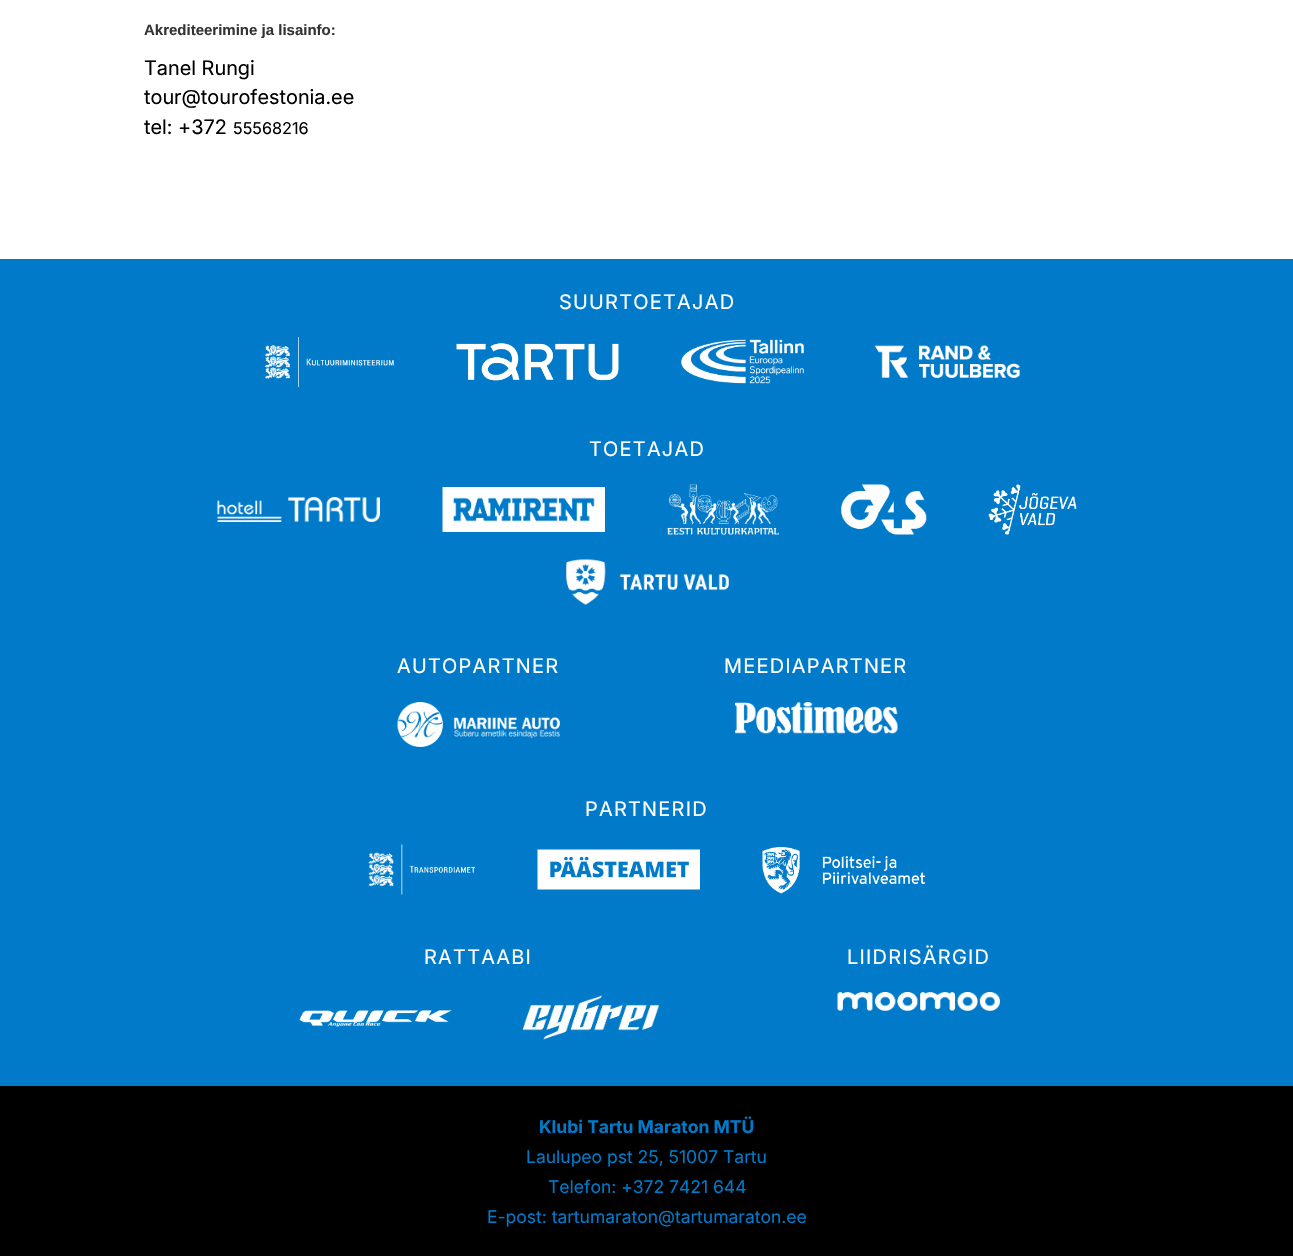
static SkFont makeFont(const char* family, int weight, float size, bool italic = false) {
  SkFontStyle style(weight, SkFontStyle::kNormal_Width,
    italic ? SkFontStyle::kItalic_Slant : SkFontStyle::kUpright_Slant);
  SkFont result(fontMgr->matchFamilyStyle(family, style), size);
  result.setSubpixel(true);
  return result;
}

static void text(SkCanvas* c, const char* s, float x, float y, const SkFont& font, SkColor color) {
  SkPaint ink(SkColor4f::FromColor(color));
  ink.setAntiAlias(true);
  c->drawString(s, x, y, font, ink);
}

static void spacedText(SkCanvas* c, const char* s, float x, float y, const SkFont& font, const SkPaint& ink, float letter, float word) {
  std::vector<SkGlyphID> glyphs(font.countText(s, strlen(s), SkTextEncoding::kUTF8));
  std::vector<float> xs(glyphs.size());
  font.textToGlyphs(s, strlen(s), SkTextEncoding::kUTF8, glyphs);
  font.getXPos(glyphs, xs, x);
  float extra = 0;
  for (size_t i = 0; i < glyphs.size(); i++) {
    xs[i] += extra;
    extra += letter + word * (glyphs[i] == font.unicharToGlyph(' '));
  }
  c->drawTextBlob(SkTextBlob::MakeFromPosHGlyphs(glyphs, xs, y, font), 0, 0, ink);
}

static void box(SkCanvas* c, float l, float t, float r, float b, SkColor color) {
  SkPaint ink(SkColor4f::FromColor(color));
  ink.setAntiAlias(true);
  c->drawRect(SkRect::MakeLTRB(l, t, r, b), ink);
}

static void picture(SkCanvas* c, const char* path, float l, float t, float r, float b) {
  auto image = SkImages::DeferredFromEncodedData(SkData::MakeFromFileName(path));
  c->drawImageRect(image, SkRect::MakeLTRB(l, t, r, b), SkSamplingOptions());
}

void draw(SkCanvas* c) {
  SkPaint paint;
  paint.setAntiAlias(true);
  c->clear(0xffffffff);
  SkFont face1 = makeFont("Liberation Sans", 700, 15);
  text(c, "Akrediteerimine ja lisainfo:", 144, 35, face1, 0xff333333);
  SkFont face2 = makeFont("Inter", 400, 20);
  text(c, "Tanel Rungi", 144, 75, face2, 0xff000000);
  text(c, "tour@tourofestonia.ee", 144, 104, face2, 0xff000000);
  text(c, "tel: +372", 144, 134, face2, 0xff000000);
  SkFont face3 = makeFont("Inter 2", 400, 16.25f);
  text(c, "55568216", 233, 134, face3, 0xff000000);
  box(c, 0, 259, 1293, 1086, 0xff007ac9);
  paint.setColor(0xffffffff);
  spacedText(c, "SUURTOETAJAD", 559, 309, face2, paint, 1.25f, 0);
  picture(c, "img_01.png", 265, 337, 394, 387);
  picture(c, "img_02.png", 456, 343, 619, 381);
  picture(c, "img_03.png", 681, 339, 804, 384);
  picture(c, "img_04.png", 874, 345, 1020, 378);
  spacedText(c, "TOETAJAD", 589, 456, face2, paint, 1.25f, 0);
  picture(c, "img_05.png", 217, 497, 380, 522);
  picture(c, "img_06.png", 442, 487, 605, 532);
  picture(c, "img_07.png", 667, 484, 779, 535);
  picture(c, "img_08.png", 841, 484, 927, 535);
  picture(c, "img_09.png", 988, 484, 1077, 535);
  picture(c, "img_10.png", 566, 559, 729, 605);
  spacedText(c, "AUTOPARTNER", 397, 673, face2, paint, 1.25f, 0);
  picture(c, "img_11.png", 397, 702, 560, 747);
  spacedText(c, "MEEDIAPARTNER", 724, 673, face2, paint, 1.25f, 0);
  picture(c, "img_12.png", 735, 702, 898, 734);
  spacedText(c, "PARTNERID", 585, 816, face2, paint, 1.25f, 0);
  picture(c, "img_13.png", 368, 844, 475, 895);
  picture(c, "img_14.png", 537, 849, 700, 890);
  picture(c, "img_15.png", 762, 847, 925, 894);
  spacedText(c, "RATTAABI", 424, 964, face2, paint, 1.25f, 0);
  picture(c, "img_16.png", 299, 1010, 452, 1027);
  picture(c, "img_17.png", 522, 995, 660, 1040);
  spacedText(c, "LIIDRISÄRGID", 847, 964, face2, paint, 1.25f, 0);
  picture(c, "img_18.png", 837, 992, 1000, 1011);
  box(c, 0, 1086, 1293, 1256, 0xff000000);
  SkFont face4 = makeFont("Inter", 700, 17.5f);
  text(c, "Klubi Tartu Maraton MTÜ", 539, 1133, face4, 0xff007ac9);
  SkFont face5 = makeFont("Inter 2", 400, 17.5f);
  text(c, "Laulupeo pst 25, 51007 Tartu", 526, 1163, face5, 0xff007ac9);
  text(c, "Telefon: +372 7421 644", 548, 1193, face5, 0xff007ac9);
  text(c, "E-post: tartumaraton@tartumaraton.ee", 487, 1223, face5, 0xff007ac9);
}
